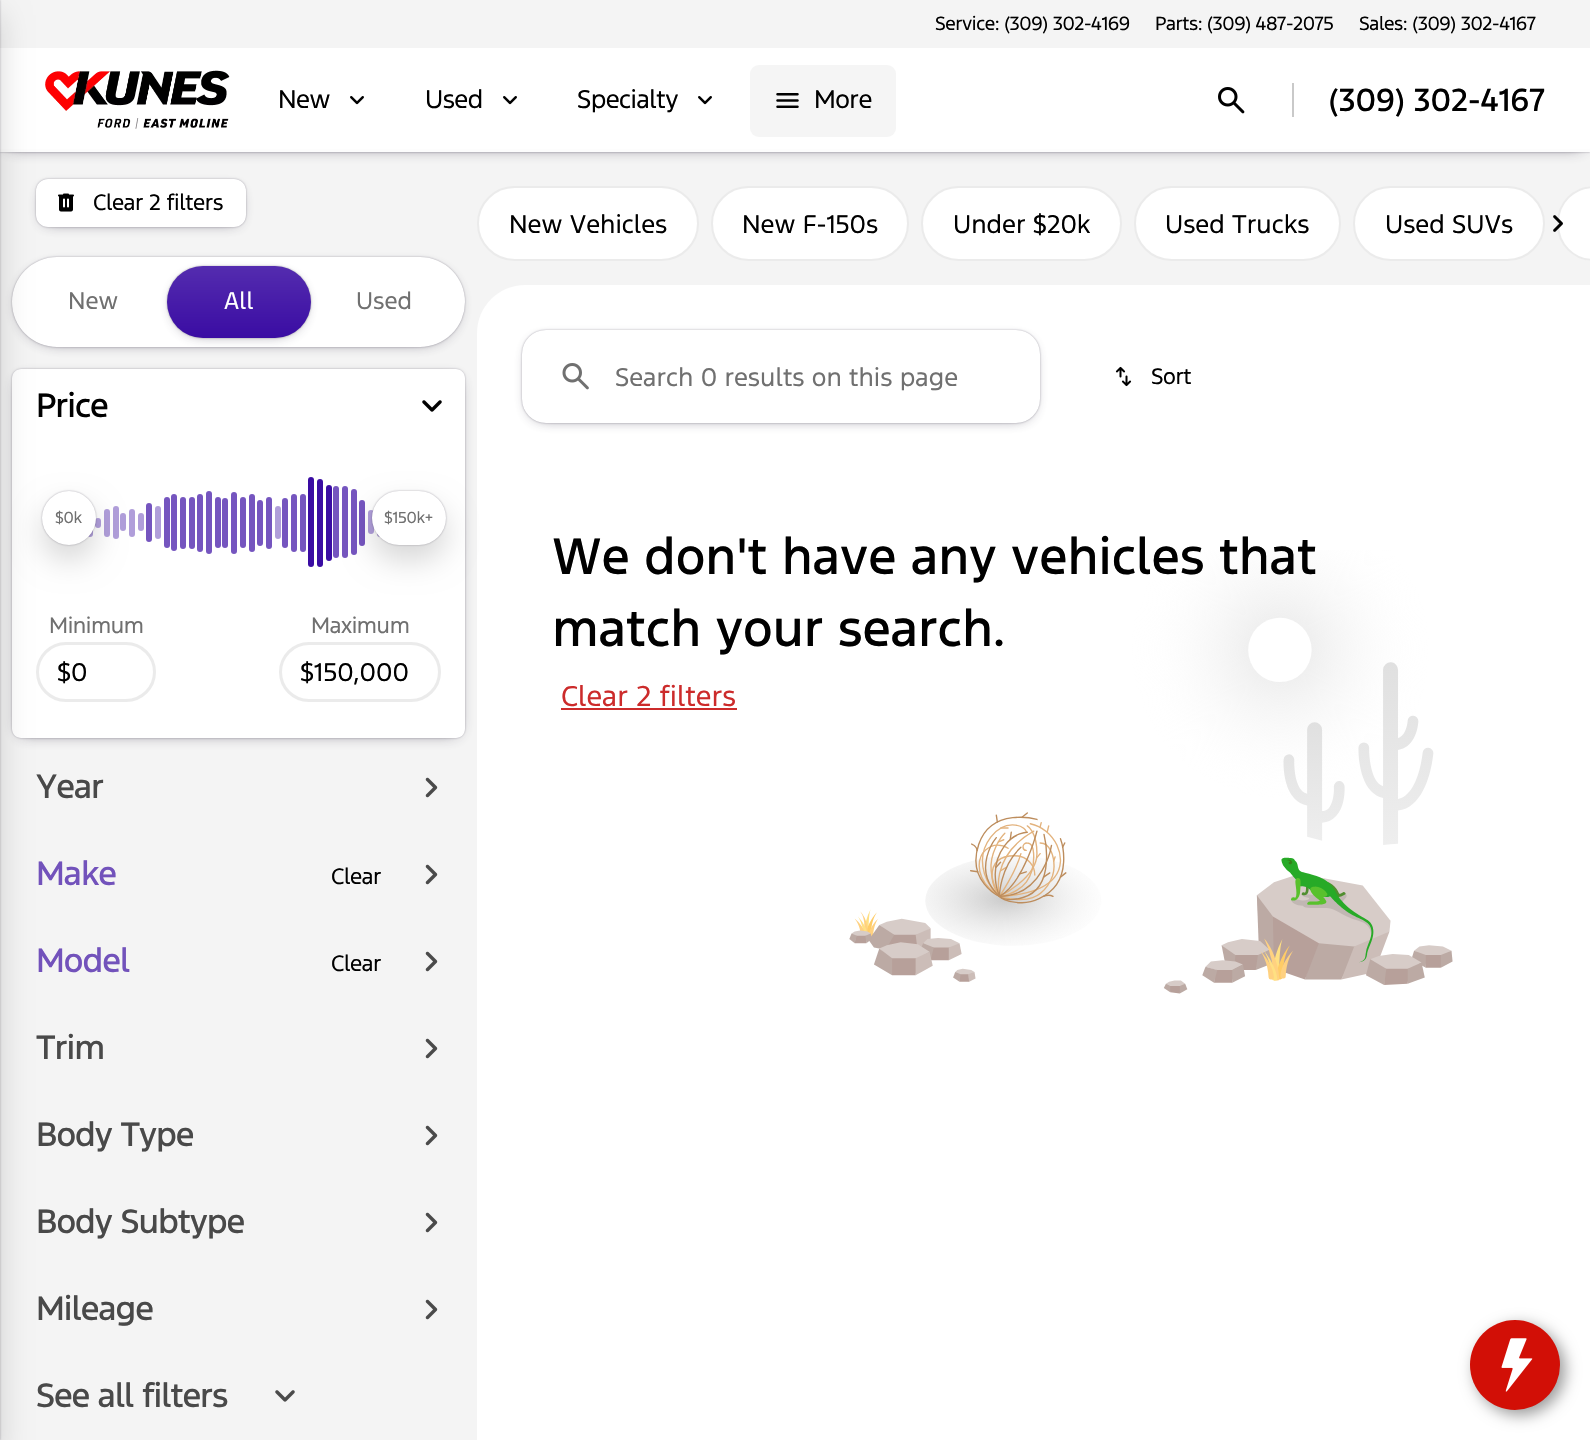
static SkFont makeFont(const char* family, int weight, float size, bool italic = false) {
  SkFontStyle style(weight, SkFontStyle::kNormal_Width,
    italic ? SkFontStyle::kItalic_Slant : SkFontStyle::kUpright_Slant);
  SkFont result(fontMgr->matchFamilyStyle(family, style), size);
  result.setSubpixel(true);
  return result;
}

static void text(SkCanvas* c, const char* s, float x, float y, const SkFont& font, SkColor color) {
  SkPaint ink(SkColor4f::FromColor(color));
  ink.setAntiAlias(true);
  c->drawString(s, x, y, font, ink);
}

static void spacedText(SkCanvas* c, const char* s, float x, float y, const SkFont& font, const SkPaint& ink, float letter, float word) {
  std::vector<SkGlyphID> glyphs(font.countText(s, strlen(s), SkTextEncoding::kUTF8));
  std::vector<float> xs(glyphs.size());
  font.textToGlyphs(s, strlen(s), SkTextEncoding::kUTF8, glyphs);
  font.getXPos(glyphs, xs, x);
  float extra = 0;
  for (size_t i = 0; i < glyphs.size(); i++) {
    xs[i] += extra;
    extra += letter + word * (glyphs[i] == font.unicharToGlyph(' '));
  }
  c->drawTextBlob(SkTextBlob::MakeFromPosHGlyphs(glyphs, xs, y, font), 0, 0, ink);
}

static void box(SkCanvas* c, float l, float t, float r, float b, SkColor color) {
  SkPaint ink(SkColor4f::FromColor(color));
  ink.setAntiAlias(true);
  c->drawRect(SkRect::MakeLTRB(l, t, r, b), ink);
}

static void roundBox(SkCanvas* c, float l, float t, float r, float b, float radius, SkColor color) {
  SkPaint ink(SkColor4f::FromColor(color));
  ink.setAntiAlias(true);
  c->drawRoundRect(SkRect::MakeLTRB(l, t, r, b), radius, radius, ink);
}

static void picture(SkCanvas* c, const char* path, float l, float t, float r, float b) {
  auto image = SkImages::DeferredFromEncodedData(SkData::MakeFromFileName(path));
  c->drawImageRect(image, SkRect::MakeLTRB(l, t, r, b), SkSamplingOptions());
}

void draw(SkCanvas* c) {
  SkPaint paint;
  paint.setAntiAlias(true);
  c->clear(0xffffffff);
  box(c, 0, 149, 1590, 1440, 0xfff4f4f4);
  c->save();
  c->clipPath(SkPathBuilder(SkPathFillType::kEvenOdd).moveTo(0, 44).lineTo(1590, 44).lineTo(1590, 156).lineTo(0, 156).close().moveTo(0, 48).lineTo(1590, 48).lineTo(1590, 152).lineTo(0, 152).close().detach(), true);
  paint.setColor(0x66272138);
  paint.setMaskFilter(SkMaskFilter::MakeBlur(kNormal_SkBlurStyle, 1));
  c->drawRect(SkRect::MakeLTRB(0, 48, 1590, 152), paint);
  paint.setMaskFilter(nullptr);
  c->restore();
  c->save();
  c->clipPath(SkPathBuilder(SkPathFillType::kEvenOdd).moveTo(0, 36).lineTo(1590, 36).lineTo(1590, 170).lineTo(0, 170).close().moveTo(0, 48).lineTo(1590, 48).lineTo(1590, 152).lineTo(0, 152).close().detach(), true);
  paint.setColor(0xcc272138);
  paint.setMaskFilter(SkMaskFilter::MakeBlur(kNormal_SkBlurStyle, 7.5f));
  c->drawRect(SkRect::MakeLTRB(9, 60, 1581, 146), paint);
  paint.setMaskFilter(nullptr);
  c->restore();
  box(c, 0, 0, 1590, 48, 0xfff4f4f4);
  box(c, 0, 149, 1590, 152, 0xccffffff);
  paint.setColor(0x66272138);
  paint.setMaskFilter(SkMaskFilter::MakeBlur(kNormal_SkBlurStyle, 1));
  c->drawRect(SkRect::MakeLTRB(-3, 0, 0, 1440), paint);
  paint.setMaskFilter(nullptr);
  picture(c, "img_01.png", 45, 70, 230, 129);
  paint.setMaskFilter(SkMaskFilter::MakeBlur(kNormal_SkBlurStyle, 1));
  c->drawRoundRect(SkRect::MakeLTRB(36, 179, 246, 227), 12, 12, paint);
  paint.setMaskFilter(nullptr);
  paint.setColor(0xcc272138);
  paint.setMaskFilter(SkMaskFilter::MakeBlur(kNormal_SkBlurStyle, 7.5f));
  c->drawRoundRect(SkRect::MakeLTRB(45, 191, 237, 221), 3, 3, paint);
  paint.setMaskFilter(nullptr);
  roundBox(c, 36, 179, 246, 227, 12, 0xffffffff);
  paint.setColor(0x66272138);
  paint.setMaskFilter(SkMaskFilter::MakeBlur(kNormal_SkBlurStyle, 1));
  c->drawRoundRect(SkRect::MakeLTRB(12, 257, 465, 347), 45, 45, paint);
  paint.setMaskFilter(nullptr);
  paint.setColor(0xffffffff);
  c->drawPath(SkPathBuilder().moveTo(525, 285).lineTo(1590, 285).lineTo(1590, 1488).lineTo(477, 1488).lineTo(477, 333).cubicTo(477, 306.5f, 498.5f, 285, 525, 285).close().detach(), paint);
  paint.setColor(0xcc272138);
  paint.setMaskFilter(SkMaskFilter::MakeBlur(kNormal_SkBlurStyle, 7.5f));
  c->drawRoundRect(SkRect::MakeLTRB(21, 269, 456, 341), 36, 36, paint);
  paint.setMaskFilter(nullptr);
  roundBox(c, 12, 257, 465, 347, 45, 0xffffffff);
  paint.setColor(0x66272138);
  paint.setMaskFilter(SkMaskFilter::MakeBlur(kNormal_SkBlurStyle, 1));
  c->drawRoundRect(SkRect::MakeLTRB(12, 369, 465, 738), 9, 9, paint);
  paint.setMaskFilter(nullptr);
  paint.setColor(0xcc272138);
  paint.setMaskFilter(SkMaskFilter::MakeBlur(kNormal_SkBlurStyle, 7.5f));
  c->drawRect(SkRect::MakeLTRB(21, 381, 456, 732), paint);
  paint.setMaskFilter(nullptr);
  paint.setColor(0xffffffff);
  c->drawPath(SkPathBuilder().moveTo(21, 369).lineTo(456, 369).cubicTo(461, 369, 465, 373, 465, 378).lineTo(465, 444).lineTo(12, 444).lineTo(12, 378).cubicTo(12, 373, 16, 369, 21, 369).close().detach(), paint);
  c->drawPath(SkPathBuilder().moveTo(12, 444).lineTo(465, 444).lineTo(465, 729).cubicTo(465, 734, 461, 738, 456, 738).lineTo(21, 738).cubicTo(16, 738, 12, 734, 12, 729).close().detach(), paint);
  roundBox(c, 87, 509, 93, 537, 3, 0xffb09eda);
  roundBox(c, 95, 518, 101, 528, 3, 0xffb09eda);
  paint.setColor(0x66272138);
  paint.setMaskFilter(SkMaskFilter::MakeBlur(kNormal_SkBlurStyle, 1));
  c->drawRoundRect(SkRect::MakeLTRB(42, 491, 96, 545), 27, 27, paint);
  paint.setMaskFilter(nullptr);
  roundBox(c, 104, 509, 110, 537, 3, 0xffb09eda);
  roundBox(c, 113, 506, 119, 539, 3, 0xffb09eda);
  roundBox(c, 120, 513, 126, 531, 3, 0xffb09eda);
  roundBox(c, 129, 509, 135, 537, 3, 0xffb09eda);
  roundBox(c, 138, 513, 144, 531, 3, 0xffb09eda);
  paint.setColor(0x29000000);
  paint.setMaskFilter(SkMaskFilter::MakeBlur(kNormal_SkBlurStyle, 15));
  c->drawRoundRect(SkRect::MakeLTRB(42, 506, 96, 560), 27, 27, paint);
  paint.setMaskFilter(nullptr);
  paint.setColor(0xffffffff);
  c->drawCircle(69, 518, 27, paint);
  paint.setStyle(SkPaint::kStroke_Style);
  paint.setStrokeWidth(3);
  paint.setColor(0xffebebeb);
  c->drawRoundRect(SkRect::MakeLTRB(37.5f, 643.5f, 154.5f, 700.5f), 28.5f, 28.5f, paint);
  paint.setStyle(SkPaint::kFill_Style);
  paint.setColor(0x29000000);
  paint.setMaskFilter(SkMaskFilter::MakeBlur(kNormal_SkBlurStyle, 15));
  c->drawRect(SkRect::MakeLTRB(-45, 15, 0, 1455), paint);
  paint.setMaskFilter(nullptr);
  SkFont face1 = makeFont("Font", 400, 18);
  paint.setColor(0xff000000);
  spacedText(c, "Service: (309) 302-4169", 935, 30, face1, paint, -0.4f, 0);
  spacedText(c, "Parts: (309) 487-2075", 1155, 30, face1, paint, -0.4f, 0);
  spacedText(c, "Sales: (309) 302-4167", 1359, 30, face1, paint, -0.4f, 0);
  SkFont face2 = makeFont("Font", 400, 24);
  spacedText(c, "New", 278, 108, face2, paint, -0.5f, 0);
  picture(c, "img_02.png", 350, 96, 364, 105);
  spacedText(c, "Used", 425, 108, face2, paint, -0.5f, 0);
  picture(c, "img_02.png", 503, 96, 517, 105);
  spacedText(c, "Specialty", 577, 108, face2, paint, -0.5f, 0);
  picture(c, "img_02.png", 698, 96, 712, 105);
  roundBox(c, 750, 65, 896, 137, 9, 0xfff5f5f5);
  picture(c, "img_03.png", 776, 93, 799, 108);
  spacedText(c, "More", 814, 108, face2, paint, -0.5f, 0);
  picture(c, "img_04.png", 1218, 87, 1245, 114);
  box(c, 1292, 83, 1294, 117, 0xffc9c9c9);
  SkFont face3 = makeFont("Font", 500, 30);
  text(c, "(309) 302-4167", 1329, 111, face3, 0xff000000);
  picture(c, "img_05.png", 58, 193, 74, 212);
  SkFont face4 = makeFont("Font", 400, 21);
  spacedText(c, "Clear 2 filters", 93, 210, face4, paint, -0.4f, 0);
  SkFont face5 = makeFont("Font", 400, 22.5f);
  text(c, "New", 68, 309, face5, 0xff707070);
  paint.setColor(0x66272138);
  paint.setMaskFilter(SkMaskFilter::MakeBlur(kNormal_SkBlurStyle, 1));
  c->drawRoundRect(SkRect::MakeLTRB(167, 266, 311, 338), 36, 36, paint);
  paint.setMaskFilter(nullptr);
  paint.setColor(0xcc272138);
  paint.setMaskFilter(SkMaskFilter::MakeBlur(kNormal_SkBlurStyle, 7.5f));
  c->drawRoundRect(SkRect::MakeLTRB(176, 278, 302, 332), 27, 27, paint);
  paint.setMaskFilter(nullptr);
  {
    const SkColor colors[] = {0xff542caf, 0xff3a0ca3};
    const float stops[] = {0, 1};
    const SkPoint ends[] = {{239, 266}, {239, 338}};
    paint.setShader(SkGradientShader::MakeLinear(ends, colors, stops, 2, SkTileMode::kClamp));
    paint.setAlpha(255);
  }
  c->drawRoundRect(SkRect::MakeLTRB(167, 266, 311, 338), 36, 36, paint);
  text(c, "All", 224, 309, face5, 0xffffffff);
  text(c, "Used", 356, 309, face5, 0xff707070);
  SkFont face6 = makeFont("Font", 500, 31.75f);
  paint.setShader(nullptr);
  paint.setColor(0xff000000);
  spacedText(c, "Price", 36, 417, face6, paint, -1, 0);
  picture(c, "img_06.png", 422, 400, 442, 412);
  SkFont face7 = makeFont("Font", 400, 15);
  paint.setColor(0xff707070);
  spacedText(c, "$0k", 55, 523, face7, paint, -0.25f, 0);
  roundBox(c, 146, 503, 152, 542, 3, 0xff7555bf);
  roundBox(c, 155, 506, 161, 539, 3, 0xffb09eda);
  roundBox(c, 164, 497, 170, 548, 3, 0xff7555bf);
  roundBox(c, 171, 494, 177, 551, 3, 0xff7555bf);
  roundBox(c, 180, 497, 186, 549, 3, 0xff7555bf);
  roundBox(c, 189, 497, 195, 549, 3, 0xff7555bf);
  roundBox(c, 197, 494, 203, 552, 3, 0xff7555bf);
  roundBox(c, 206, 491, 212, 554, 3, 0xff7555bf);
  roundBox(c, 215, 497, 221, 548, 3, 0xff7555bf);
  roundBox(c, 222, 498, 228, 548, 3, 0xff7555bf);
  roundBox(c, 231, 492, 237, 554, 3, 0xff7555bf);
  roundBox(c, 240, 497, 246, 548, 3, 0xff7555bf);
  roundBox(c, 249, 494, 255, 552, 3, 0xff7555bf);
  roundBox(c, 257, 500, 263, 546, 3, 0xff7555bf);
  roundBox(c, 266, 497, 272, 549, 3, 0xff7555bf);
  roundBox(c, 275, 506, 281, 539, 3, 0xffb09eda);
  roundBox(c, 282, 498, 288, 548, 3, 0xff7555bf);
  roundBox(c, 291, 494, 297, 552, 3, 0xff7555bf);
  roundBox(c, 300, 494, 306, 552, 3, 0xff7555bf);
  roundBox(c, 308, 477, 314, 567, 3, 0xff3a0ca3);
  roundBox(c, 317, 479, 323, 567, 3, 0xff3a0ca3);
  roundBox(c, 326, 485, 332, 561, 3, 0xff3a0ca3);
  roundBox(c, 333, 486, 339, 558, 3, 0xff7555bf);
  roundBox(c, 342, 486, 348, 558, 3, 0xff7555bf);
  roundBox(c, 351, 489, 357, 555, 3, 0xff7555bf);
  roundBox(c, 359, 500, 365, 546, 3, 0xff7555bf);
  roundBox(c, 368, 510, 374, 534, 3, 0xffb09eda);
  roundBox(c, 377, 509, 383, 537, 3, 0xffb09eda);
  paint.setColor(0x66272138);
  paint.setMaskFilter(SkMaskFilter::MakeBlur(kNormal_SkBlurStyle, 1));
  c->drawRoundRect(SkRect::MakeLTRB(372, 491, 446, 545), 27, 27, paint);
  paint.setMaskFilter(nullptr);
  paint.setColor(0x29000000);
  paint.setMaskFilter(SkMaskFilter::MakeBlur(kNormal_SkBlurStyle, 15));
  c->drawRoundRect(SkRect::MakeLTRB(372, 506, 446, 560), 27, 27, paint);
  paint.setMaskFilter(nullptr);
  roundBox(c, 372, 491, 446, 545, 27, 0xffffffff);
  paint.setColor(0xff707070);
  spacedText(c, "$150k+", 384, 523, face7, paint, -0.25f, 0);
  spacedText(c, "Minimum", 49, 633, face4, paint, -0.4f, 0);
  text(c, "$0", 57, 681, face2, 0xff000000);
  spacedText(c, "Maximum", 311, 633, face4, paint, -0.4f, 0);
  paint.setStyle(SkPaint::kStroke_Style);
  paint.setColor(0xffebebeb);
  c->drawRoundRect(SkRect::MakeLTRB(280.5f, 643.5f, 439.5f, 700.5f), 28.5f, 28.5f, paint);
  text(c, "$150,000", 300, 681, face2, 0xff000000);
  paint.setStyle(SkPaint::kFill_Style);
  paint.setColor(0xff494949);
  spacedText(c, "Year", 36, 798, face6, paint, -1, 0);
  picture(c, "img_07.png", 425, 777, 438, 798);
  paint.setColor(0xff7252bb);
  spacedText(c, "Make", 36, 885, face6, paint, -1, 0);
  picture(c, "img_07.png", 425, 864, 438, 885);
  paint.setColor(0xff000000);
  spacedText(c, "Clear", 331, 884, face4, paint, -0.4f, 0);
  paint.setColor(0xff7252bb);
  spacedText(c, "Model", 36, 972, face6, paint, -1, 0);
  picture(c, "img_07.png", 425, 951, 438, 972);
  paint.setColor(0xff000000);
  spacedText(c, "Clear", 331, 971, face4, paint, -0.4f, 0);
  paint.setColor(0xff494949);
  spacedText(c, "Trim", 36, 1059, face6, paint, -1, 0);
  picture(c, "img_07.png", 425, 1038, 438, 1059);
  spacedText(c, "Body Type", 36, 1146, face6, paint, -1, 0);
  picture(c, "img_07.png", 425, 1125, 438, 1146);
  spacedText(c, "Body Subtype", 36, 1233, face6, paint, -1, 0);
  picture(c, "img_07.png", 425, 1212, 438, 1233);
  spacedText(c, "Mileage", 36, 1320, face6, paint, -1, 0);
  picture(c, "img_07.png", 425, 1299, 438, 1320);
  spacedText(c, "See all filters", 36, 1407, face6, paint, -1, 0);
  picture(c, "img_08.png", 275, 1390, 295, 1402);
  paint.setColor(0xffffffff);
  c->drawRoundRect(SkRect::MakeLTRB(478, 187, 698, 260), 36.5f, 36.5f, paint);
  paint.setStyle(SkPaint::kStroke_Style);
  paint.setStrokeWidth(2);
  paint.setColor(0xffebebeb);
  c->drawRoundRect(SkRect::MakeLTRB(478, 187, 698, 260), 36.5f, 36.5f, paint);
  text(c, "New Vehicles", 509, 233, face2, 0xff000000);
  paint.setStyle(SkPaint::kFill_Style);
  paint.setColor(0xffffffff);
  c->drawRoundRect(SkRect::MakeLTRB(712, 187, 908, 260), 36.5f, 36.5f, paint);
  paint.setStyle(SkPaint::kStroke_Style);
  paint.setColor(0xffebebeb);
  c->drawRoundRect(SkRect::MakeLTRB(712, 187, 908, 260), 36.5f, 36.5f, paint);
  text(c, "New F-150s", 742, 233, face2, 0xff000000);
  paint.setStyle(SkPaint::kFill_Style);
  paint.setColor(0xffffffff);
  c->drawRoundRect(SkRect::MakeLTRB(922, 187, 1121, 260), 36.5f, 36.5f, paint);
  paint.setStyle(SkPaint::kStroke_Style);
  paint.setColor(0xffebebeb);
  c->drawRoundRect(SkRect::MakeLTRB(922, 187, 1121, 260), 36.5f, 36.5f, paint);
  text(c, "Under $20k", 953, 233, face2, 0xff000000);
  paint.setStyle(SkPaint::kFill_Style);
  paint.setColor(0xffffffff);
  c->drawRoundRect(SkRect::MakeLTRB(1135, 187, 1340, 260), 36.5f, 36.5f, paint);
  paint.setStyle(SkPaint::kStroke_Style);
  paint.setColor(0xffebebeb);
  c->drawRoundRect(SkRect::MakeLTRB(1135, 187, 1340, 260), 36.5f, 36.5f, paint);
  text(c, "Used Trucks", 1165, 233, face2, 0xff000000);
  paint.setStyle(SkPaint::kFill_Style);
  paint.setColor(0xffffffff);
  c->drawRoundRect(SkRect::MakeLTRB(1354, 187, 1544, 260), 36.5f, 36.5f, paint);
  paint.setStyle(SkPaint::kStroke_Style);
  paint.setColor(0xffebebeb);
  c->drawRoundRect(SkRect::MakeLTRB(1354, 187, 1544, 260), 36.5f, 36.5f, paint);
  text(c, "Used SUVs", 1385, 233, face2, 0xff000000);
  paint.setStyle(SkPaint::kFill_Style);
  paint.setColor(0xffffffff);
  c->drawPath(SkPathBuilder().moveTo(1594.5f, 186).lineTo(1590, 186).lineTo(1590, 261).lineTo(1594.5f, 261).cubicTo(1574, 261, 1557, 244, 1557, 223.5f).cubicTo(1557, 203, 1574, 186, 1594.5f, 186).close().detach(), paint);
  paint.setStyle(SkPaint::kStroke_Style);
  paint.setColor(0xffebebeb);
  c->drawRoundRect(SkRect::MakeLTRB(1558, 187, 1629, 260), 36.5f, 36.5f, paint);
  picture(c, "img_09.png", 1553, 215, 1563, 232);
  paint.setStyle(SkPaint::kFill_Style);
  paint.setColor(0x66272138);
  paint.setMaskFilter(SkMaskFilter::MakeBlur(kNormal_SkBlurStyle, 1));
  c->drawRoundRect(SkRect::MakeLTRB(522, 330, 1040, 423), 24, 24, paint);
  paint.setMaskFilter(nullptr);
  paint.setColor(0xcc272138);
  paint.setMaskFilter(SkMaskFilter::MakeBlur(kNormal_SkBlurStyle, 7.5f));
  c->drawRoundRect(SkRect::MakeLTRB(531, 342, 1031, 417), 15, 15, paint);
  paint.setMaskFilter(nullptr);
  roundBox(c, 522, 330, 1040, 423, 24, 0xffffffff);
  picture(c, "img_10.png", 562, 363, 589, 390);
  text(c, "Search 0 results on this page", 615, 386, face2, 0xff707070);
  picture(c, "img_11.png", 1115, 366, 1132, 387);
  paint.setColor(0xff000000);
  spacedText(c, "Sort", 1151, 384, face4, paint, -0.4f, 0);
  picture(c, "img_12.png", 849, 550, 1453, 994);
  SkFont face8 = makeFont("Font", 500, 48);
  text(c, "We don't have any vehicles that", 552, 574, face8, 0xff000000);
  text(c, "match your search.", 552, 646, face8, 0xff000000);
  SkFont face9 = makeFont("Font", 400, 27);
  text(c, "Clear 2 filters", 561, 706, face9, 0xffcc2b2b);
  box(c, 561, 708, 737, 710, 0xffcc2b2b);
  paint.setColor(0x66000000);
  paint.setMaskFilter(SkMaskFilter::MakeBlur(kNormal_SkBlurStyle, 7.5f));
  c->drawRoundRect(SkRect::MakeLTRB(1475, 1325, 1565, 1415), 45, 45, paint);
  paint.setMaskFilter(nullptr);
  paint.setColor(0xffd20f06);
  c->drawCircle(1515, 1365, 45, paint);
  picture(c, "img_13.png", 1501, 1338, 1533, 1392);
}
